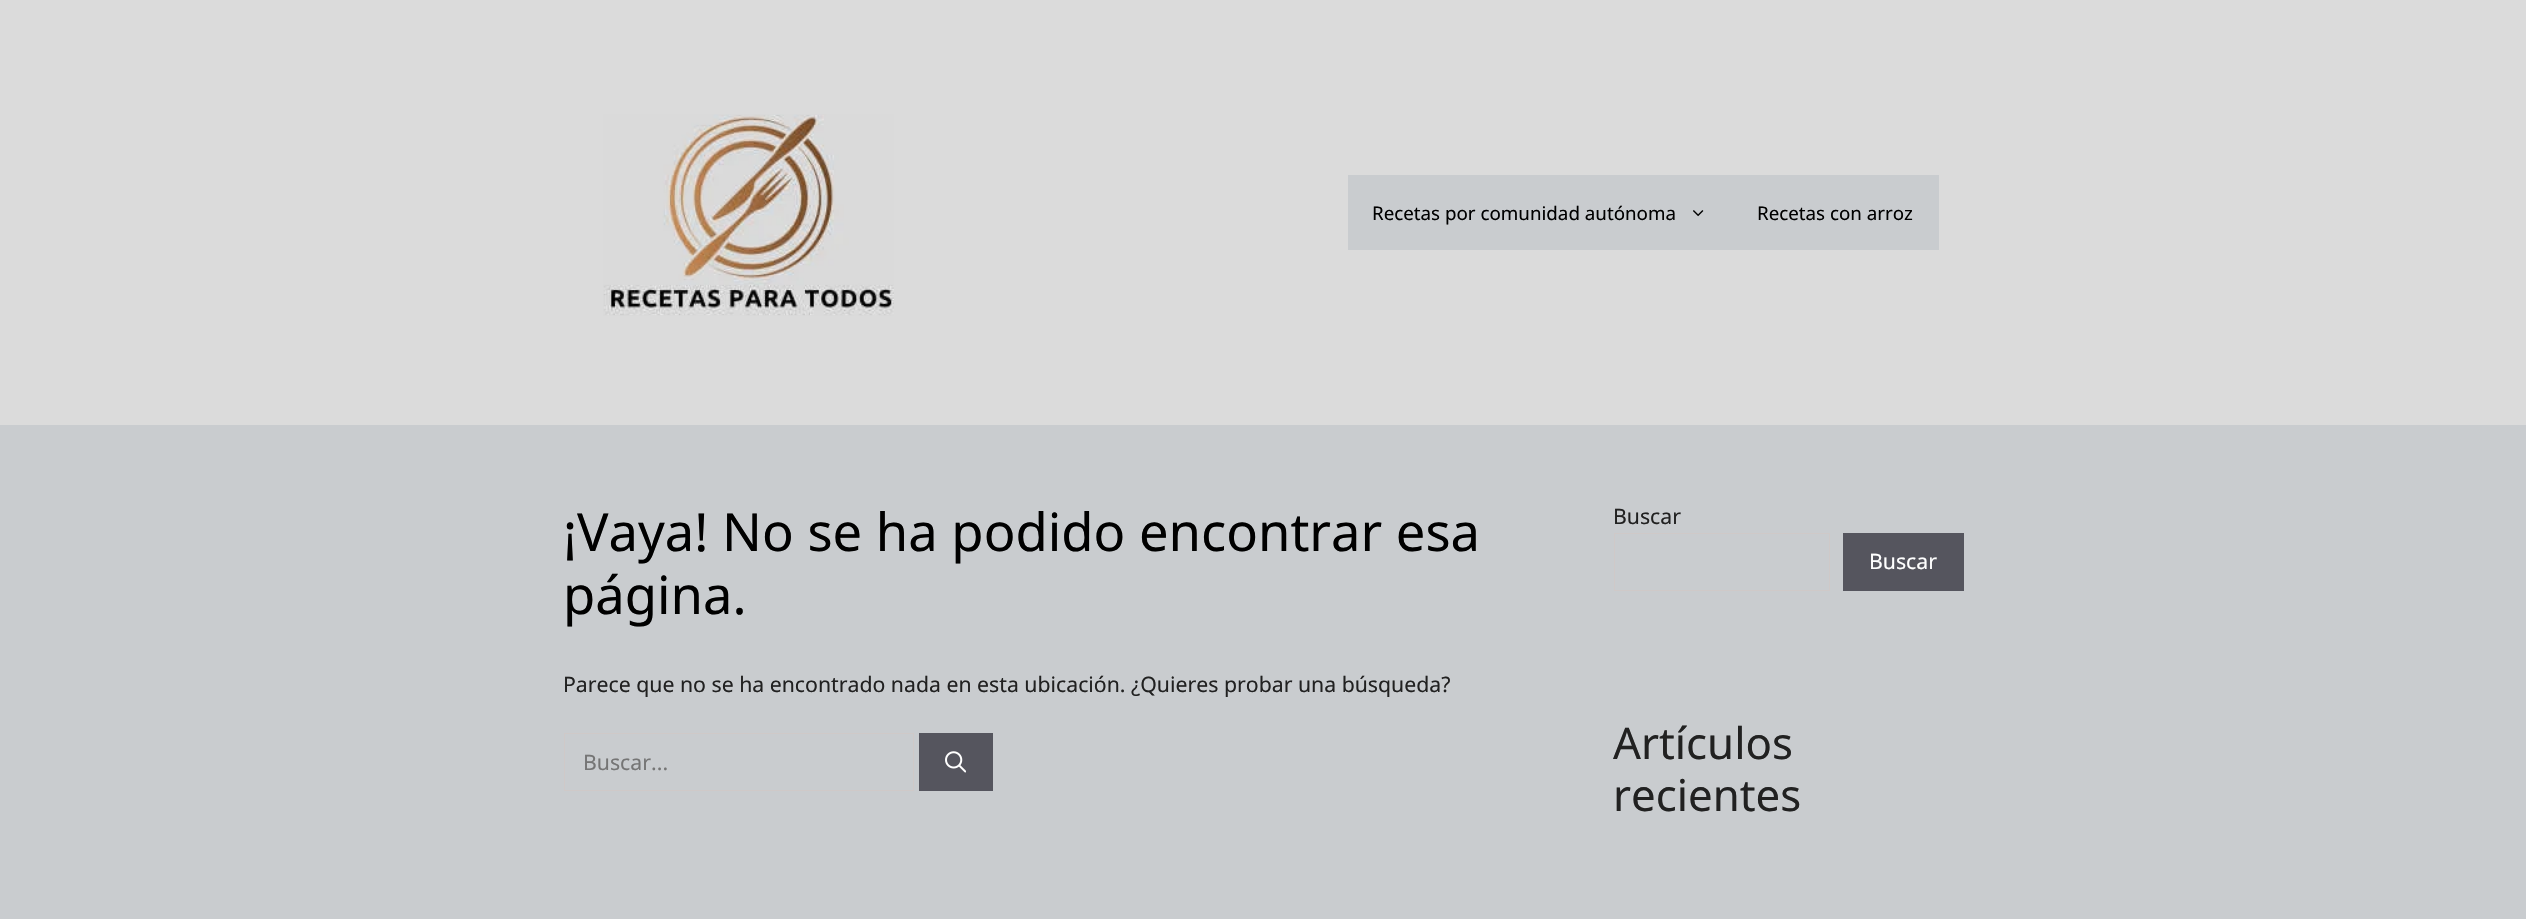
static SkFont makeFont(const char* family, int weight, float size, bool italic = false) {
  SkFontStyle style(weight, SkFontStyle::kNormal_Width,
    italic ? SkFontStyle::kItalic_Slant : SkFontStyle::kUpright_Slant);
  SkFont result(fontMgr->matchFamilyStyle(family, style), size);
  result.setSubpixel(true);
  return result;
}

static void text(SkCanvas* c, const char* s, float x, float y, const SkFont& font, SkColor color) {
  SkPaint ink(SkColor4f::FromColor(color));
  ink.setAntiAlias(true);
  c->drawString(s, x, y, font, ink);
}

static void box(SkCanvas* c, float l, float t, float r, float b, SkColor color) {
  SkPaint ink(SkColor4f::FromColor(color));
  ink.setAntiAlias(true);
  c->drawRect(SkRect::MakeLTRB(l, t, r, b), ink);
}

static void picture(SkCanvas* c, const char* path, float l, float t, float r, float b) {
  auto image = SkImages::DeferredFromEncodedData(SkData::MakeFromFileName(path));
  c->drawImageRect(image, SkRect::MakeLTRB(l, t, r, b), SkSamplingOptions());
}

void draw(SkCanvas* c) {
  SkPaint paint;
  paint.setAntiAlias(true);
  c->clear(0xffc9cccf);
  box(c, 0, 0, 2526, 425, 0xffdbdbdb);
  picture(c, "img_01.png", 603, 114, 894, 316);
  box(c, 1348, 175, 1939, 250, 0xffc9cccf);
  SkFont face1 = makeFont("Noto Sans", 400, 18.75f);
  text(c, "Recetas por comunidad autónoma", 1372, 220, face1, 0xff000000);
  picture(c, "img_02.png", 1693, 210, 1704, 217);
  text(c, "Recetas con arroz", 1757, 220, face1, 0xff000000);
  SkFont face2 = makeFont("Noto Sans", 400, 52.5f);
  text(c, "¡Vaya! No se ha podido encontrar esa", 563, 551, face2, 0xff000000);
  text(c, "página.", 563, 614, face2, 0xff000000);
  SkFont face3 = makeFont("Noto Sans", 400, 21.25f);
  text(c, "Parece que no se ha encontrado nada en esta ubicación. ¿Quieres probar una búsqueda?", 563, 692, face3, 0xff212121);
  paint.setStyle(SkPaint::kStroke_Style);
  paint.setStrokeWidth(1);
  paint.setColor(0xffcfc9c8);
  c->drawRect(SkRect::MakeLTRB(564.5f, 733.5f, 913.5f, 790.5f), paint);
  text(c, "Buscar...", 583, 770, face3, 0xff757575);
  box(c, 919, 733, 993, 791, 0xff55555e);
  picture(c, "img_03.png", 945, 751, 966, 773);
  text(c, "Buscar", 1613, 524, face3, 0xff212121);
  c->drawRect(SkRect::MakeLTRB(1614.5f, 533.5f, 1829.5f, 590.5f), paint);
  box(c, 1843, 533, 1964, 591, 0xff55555e);
  text(c, "Buscar", 1869, 569, face3, 0xffffffff);
  SkFont face4 = makeFont("Noto Sans", 400, 43.75f);
  text(c, "Artículos", 1613, 759, face4, 0xff212121);
  text(c, "recientes", 1613, 811, face4, 0xff212121);
}
